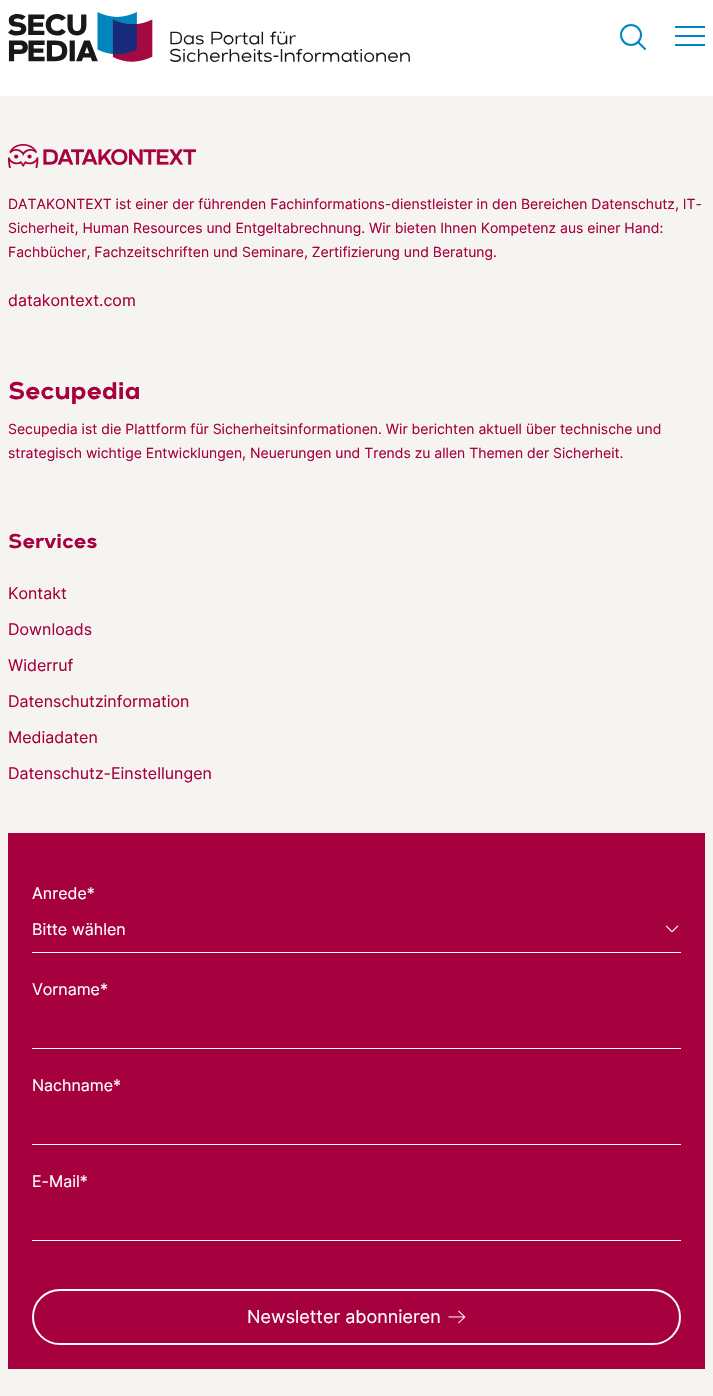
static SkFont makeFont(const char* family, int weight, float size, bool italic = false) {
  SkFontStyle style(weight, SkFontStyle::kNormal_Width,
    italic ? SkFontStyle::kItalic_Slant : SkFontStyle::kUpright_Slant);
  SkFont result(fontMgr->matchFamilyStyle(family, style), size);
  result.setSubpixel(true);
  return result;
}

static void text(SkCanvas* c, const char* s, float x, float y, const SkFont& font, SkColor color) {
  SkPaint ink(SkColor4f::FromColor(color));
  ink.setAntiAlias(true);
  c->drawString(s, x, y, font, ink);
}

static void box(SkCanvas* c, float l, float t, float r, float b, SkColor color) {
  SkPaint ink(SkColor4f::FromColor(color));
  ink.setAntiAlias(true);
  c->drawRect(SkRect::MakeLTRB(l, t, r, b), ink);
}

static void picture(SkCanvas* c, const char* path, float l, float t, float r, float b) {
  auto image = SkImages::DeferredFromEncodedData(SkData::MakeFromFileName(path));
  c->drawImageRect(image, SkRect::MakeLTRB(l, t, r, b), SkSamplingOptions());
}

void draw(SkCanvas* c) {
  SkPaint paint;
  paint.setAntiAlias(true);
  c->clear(0xffffffff);
  picture(c, "img_01.png", 8, 12, 410, 62);
  paint.setStyle(SkPaint::kStroke_Style);
  paint.setStrokeWidth(2);
  paint.setColor(0xff0086c0);
  c->drawCircle(631, 35, 10, paint);
  paint.setStrokeCap(SkPaint::kRound_Cap);
  c->drawPath(SkPathBuilder().moveTo(645, 49).lineTo(638, 42).detach(), paint);
  box(c, 675, 26, 705, 28, 0xff0086c0);
  box(c, 675, 35, 705, 37, 0xff0086c0);
  box(c, 675, 44, 705, 46, 0xff0086c0);
  box(c, 0, 96, 713, 1396, 0xfff5f4f1);
  picture(c, "img_02.png", 8, 144, 196, 168);
  SkFont face1 = makeFont("Inter", 400, 14);
  text(c, "DATAKONTEXT ist einer der führenden Fachinformations-dienstleister in den Bereichen Datenschutz, IT-", 8, 209, face1, 0xffa7003f);
  text(c, "Sicherheit, Human Resources und Entgeltabrechnung. Wir bieten Ihnen Kompetenz aus einer Hand:", 8, 233, face1, 0xffa7003f);
  text(c, "Fachbücher, Fachzeitschriften und Seminare, Zertifizierung und Beratung.", 8, 257, face1, 0xffa7003f);
  SkFont face2 = makeFont("Inter", 400, 16);
  text(c, "datakontext.com", 8, 306, face2, 0xffa7003f);
  SkFont face3 = makeFont("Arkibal", 700, 24);
  text(c, "Secupedia", 8, 399, face3, 0xffa7003f);
  text(c, "Secupedia ist die Plattform für Sicherheitsinformationen. Wir berichten aktuell über technische und", 8, 434, face1, 0xffa7003f);
  text(c, "strategisch wichtige Entwicklungen, Neuerungen und Trends zu allen Themen der Sicherheit.", 8, 458, face1, 0xffa7003f);
  SkFont face4 = makeFont("Arkibal", 700, 20);
  text(c, "Services", 8, 548, face4, 0xffa7003f);
  text(c, "Kontakt", 8, 599, face2, 0xffa7003f);
  text(c, "Downloads", 8, 635, face2, 0xffa7003f);
  text(c, "Widerruf", 8, 671, face2, 0xffa7003f);
  text(c, "Datenschutzinformation", 8, 707, face2, 0xffa7003f);
  text(c, "Mediadaten", 8, 743, face2, 0xffa7003f);
  text(c, "Datenschutz-Einstellungen", 8, 779, face2, 0xffa7003f);
  box(c, 8, 833, 705, 1369, 0xffa7003f);
  text(c, "Anrede*", 32, 899, face2, 0xffffffff);
  picture(c, "img_03.png", 665, 925, 679, 933);
  box(c, 32, 952, 681, 953, 0xffffffff);
  text(c, "Bitte wählen", 32, 935, face2, 0xffffffff);
  text(c, "Vorname*", 32, 995, face2, 0xffffffff);
  box(c, 32, 1048, 681, 1049, 0xffffffff);
  text(c, "Nachname*", 32, 1091, face2, 0xffffffff);
  box(c, 32, 1144, 681, 1145, 0xffffffff);
  text(c, "E-Mail*", 32, 1187, face2, 0xffffffff);
  box(c, 32, 1240, 681, 1241, 0xffffffff);
  paint.setStrokeCap(SkPaint::kButt_Cap);
  paint.setColor(0xffffffff);
  c->drawRoundRect(SkRect::MakeLTRB(33, 1290, 680, 1344), 27, 27, paint);
  SkFont face5 = makeFont("Inter", 400, 18);
  text(c, "Newsletter abonnieren", 247, 1323, face5, 0xffffffff);
  picture(c, "img_04.png", 448, 1310, 466, 1324);
}
